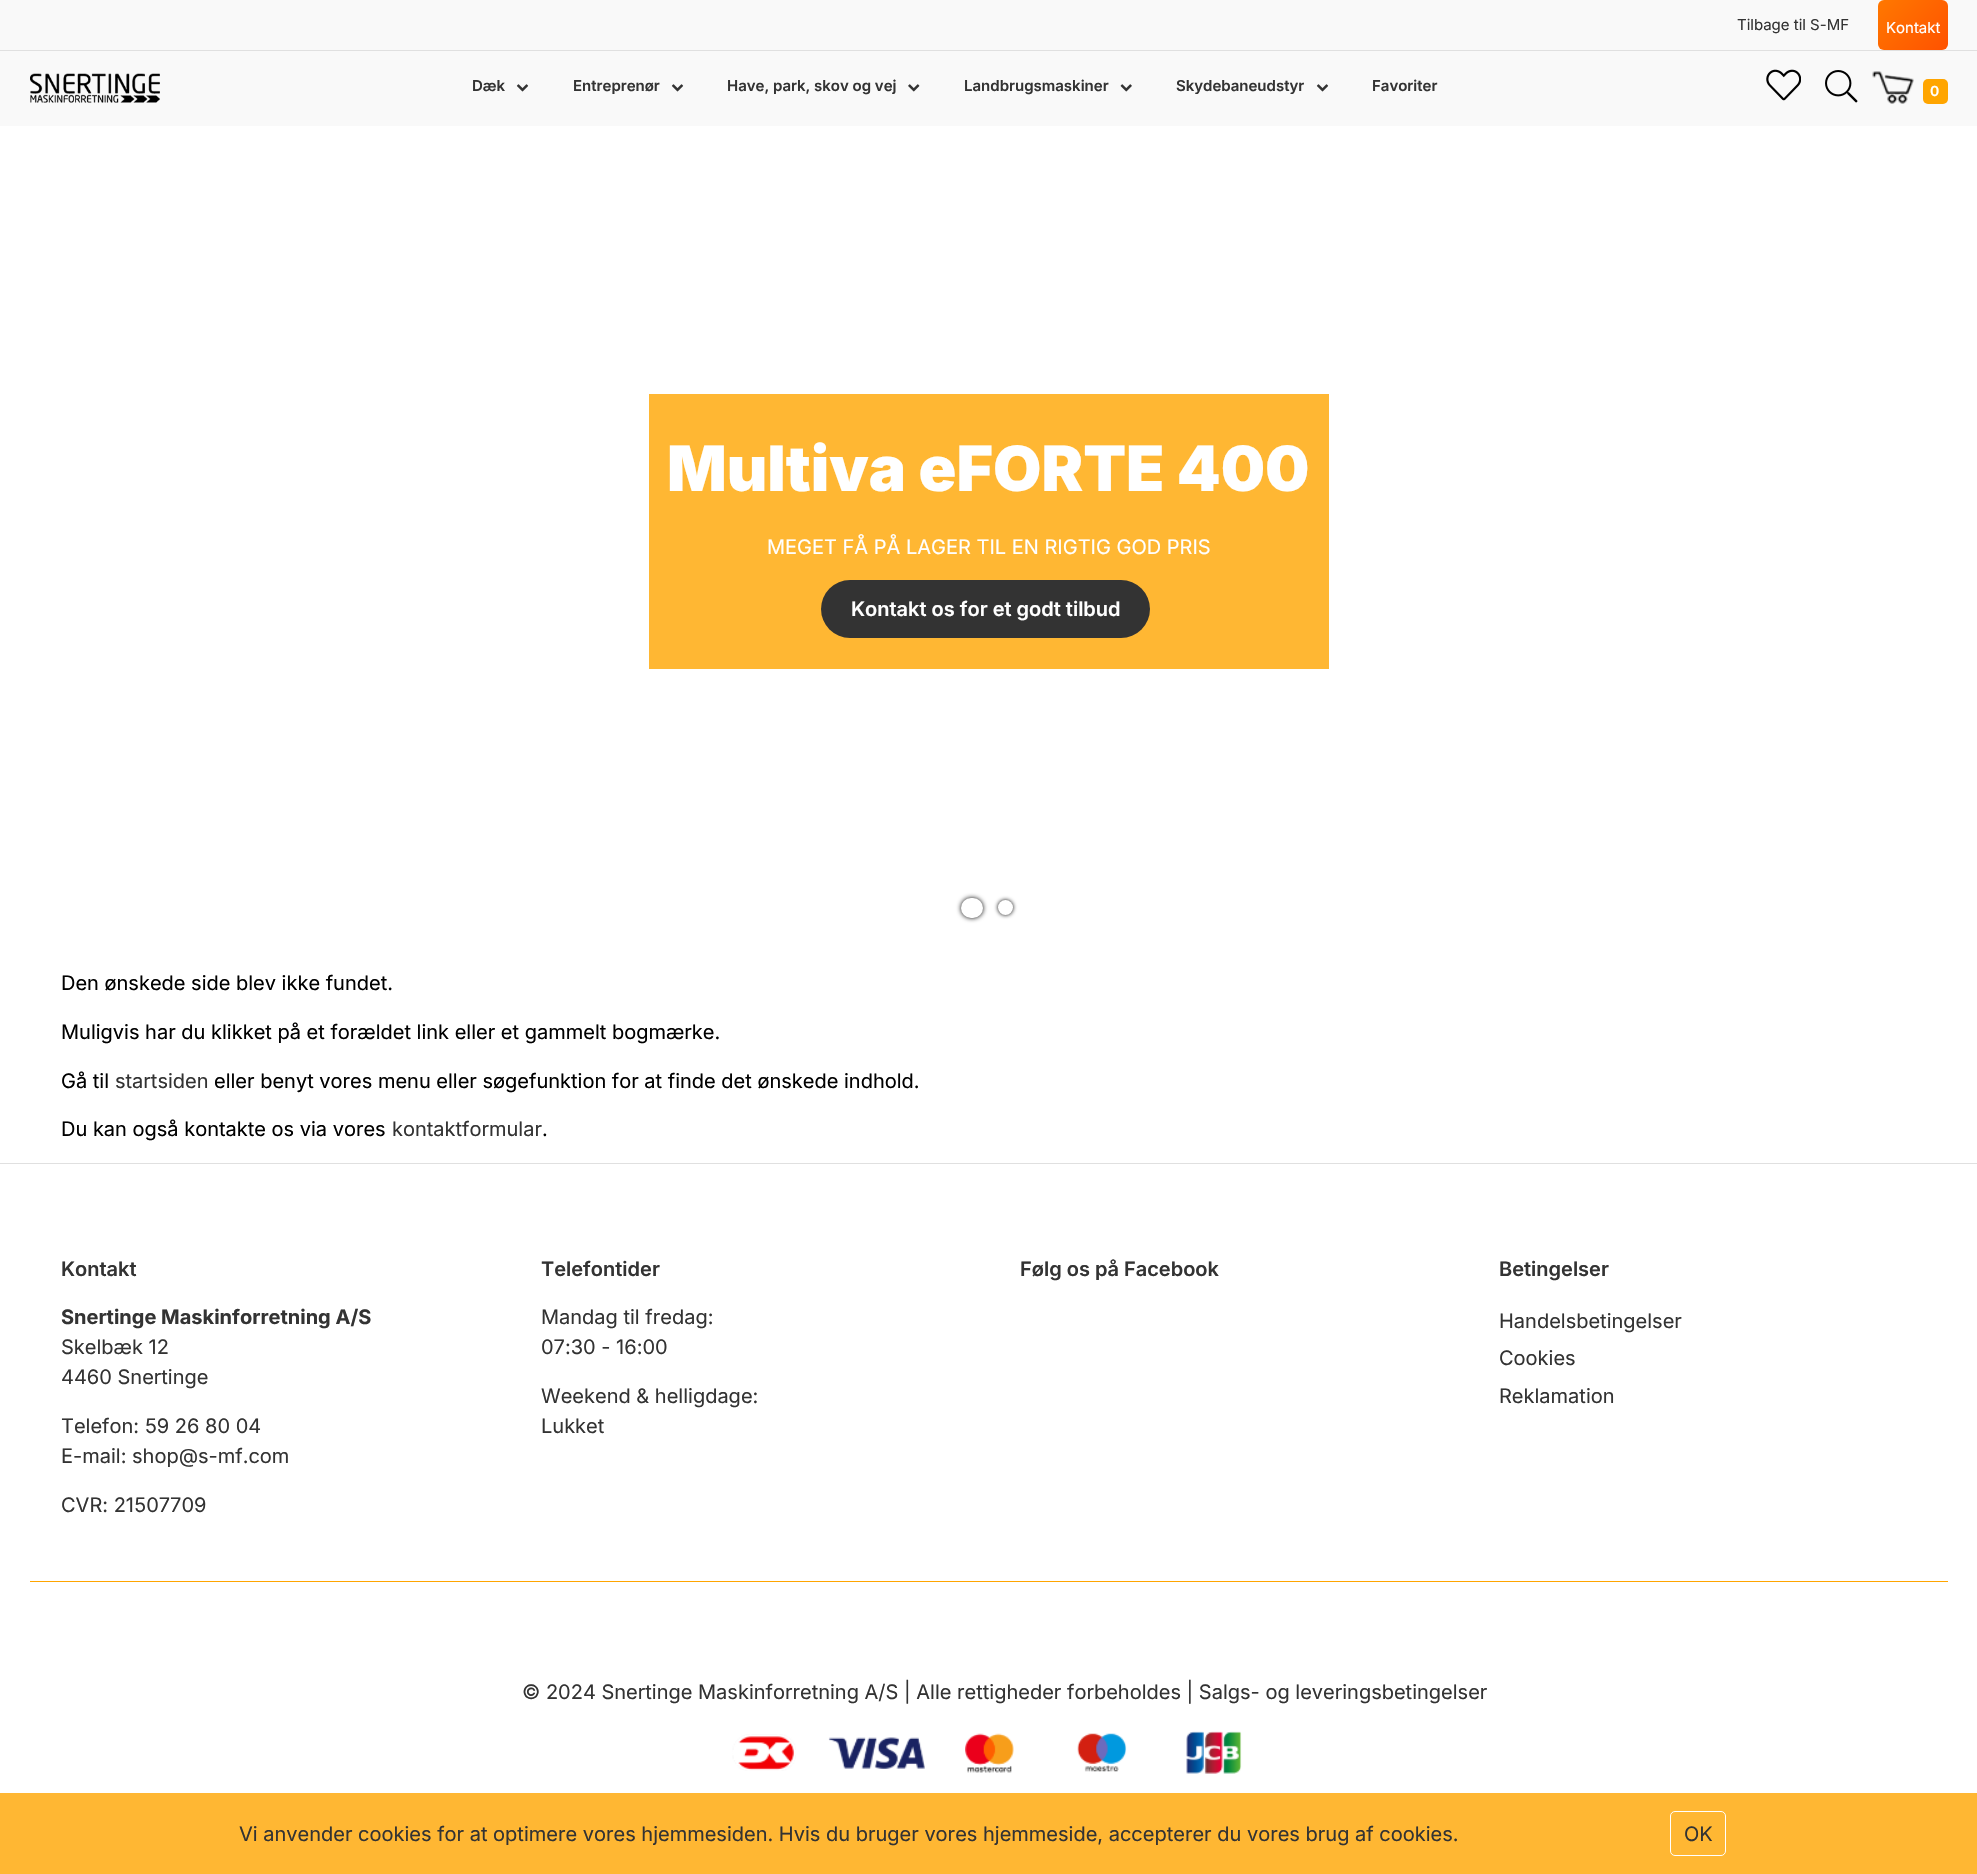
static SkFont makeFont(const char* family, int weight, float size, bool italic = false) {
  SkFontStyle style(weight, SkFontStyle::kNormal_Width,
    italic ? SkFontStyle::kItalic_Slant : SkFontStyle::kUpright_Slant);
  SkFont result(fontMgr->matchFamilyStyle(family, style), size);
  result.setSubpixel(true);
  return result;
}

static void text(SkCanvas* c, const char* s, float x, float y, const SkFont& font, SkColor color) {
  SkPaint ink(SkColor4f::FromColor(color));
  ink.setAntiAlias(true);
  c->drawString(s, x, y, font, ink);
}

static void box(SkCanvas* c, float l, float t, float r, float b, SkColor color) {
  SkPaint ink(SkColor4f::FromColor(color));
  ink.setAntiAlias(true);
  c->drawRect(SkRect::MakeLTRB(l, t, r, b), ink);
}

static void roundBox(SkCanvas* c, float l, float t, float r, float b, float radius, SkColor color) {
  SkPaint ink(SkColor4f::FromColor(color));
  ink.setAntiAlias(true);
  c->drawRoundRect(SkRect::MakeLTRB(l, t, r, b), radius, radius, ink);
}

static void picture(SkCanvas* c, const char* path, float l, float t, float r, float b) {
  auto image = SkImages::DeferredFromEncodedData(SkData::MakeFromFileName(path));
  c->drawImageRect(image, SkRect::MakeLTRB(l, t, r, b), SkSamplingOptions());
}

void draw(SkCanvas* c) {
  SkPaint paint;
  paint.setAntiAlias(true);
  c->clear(0xffffffff);
  box(c, 0, 0, 1977, 50, 0xfff9f9f9);
  box(c, 0, 50, 1977, 51, 0xffe0e0e0);
  SkFont face1 = makeFont("Inter", 400, 15);
  text(c, "Tilbage til S-MF", 1737, 30, face1, 0xff333333);
  {
    const SkColor colors[] = {0xffff7800, 0xffff5200};
    const float stops[] = {0, 1};
    const SkPoint ends[] = {{1883, -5}, {1943, 55}};
    paint.setShader(SkGradientShader::MakeLinear(ends, colors, stops, 2, SkTileMode::kClamp));
    paint.setAlpha(255);
  }
  c->drawRoundRect(SkRect::MakeLTRB(1878, 0, 1948, 50), 6, 6, paint);
  text(c, "Kontakt", 1886, 33, face1, 0xffffffff);
  box(c, 0, 51, 1977, 126, 0xfff9f9f9);
  picture(c, "img_01.png", 30, 73, 160, 103);
  SkFont face2 = makeFont("Inter", 600, 15);
  text(c, "Dæk", 472, 91, face2, 0xff333333);
  picture(c, "img_02.png", 516, 84, 529, 92);
  text(c, "Entreprenør", 573, 91, face2, 0xff333333);
  picture(c, "img_02.png", 671, 84, 684, 92);
  text(c, "Have, park, skov og vej", 727, 91, face2, 0xff333333);
  picture(c, "img_03.png", 908, 84, 920, 92);
  text(c, "Landbrugsmaskiner", 964, 91, face2, 0xff333333);
  picture(c, "img_04.png", 1120, 84, 1132, 92);
  text(c, "Skydebaneudstyr", 1176, 91, face2, 0xff333333);
  picture(c, "img_02.png", 1316, 84, 1329, 92);
  text(c, "Favoriter", 1372, 91, face2, 0xff333333);
  picture(c, "img_05.png", 1766, 69, 1801, 101);
  picture(c, "img_06.png", 1825, 70, 1858, 103);
  picture(c, "img_07.png", 1872, 71, 1914, 104);
  roundBox(c, 1923, 79, 1948, 104, 5, 0xffffa500);
  SkFont face3 = makeFont("Inter", 600, 14);
  text(c, "0", 1930, 96, face3, 0xffffffff);
  box(c, 649, 394, 1329, 669, 0xffffb733);
  SkFont face4 = makeFont("Inter", 900, 62.5f);
  text(c, "Multiva eFORTE 400", 667, 491, face4, 0xffffffff);
  SkFont face5 = makeFont("Inter", 400, 20);
  text(c, "MEGET FÅ PÅ LAGER TIL EN RIGTIG GOD PRIS", 767, 554, face5, 0xffffffff);
  roundBox(c, 821, 580, 1150, 638, 29, 0xff333333);
  SkFont face6 = makeFont("Inter", 600, 20);
  text(c, "Kontakt os for et godt tilbud", 851, 616, face6, 0xffffffff);
  paint.setShader(nullptr);
  paint.setColor(0xff000000);
  paint.setMaskFilter(SkMaskFilter::MakeBlur(kNormal_SkBlurStyle, 2.5f));
  c->drawRoundRect(SkRect::MakeLTRB(961, 898, 983, 918), 10, 10, paint);
  paint.setMaskFilter(nullptr);
  roundBox(c, 961, 898, 983, 918, 10, 0xffffffff);
  paint.setMaskFilter(SkMaskFilter::MakeBlur(kNormal_SkBlurStyle, 2));
  c->drawRoundRect(SkRect::MakeLTRB(998, 900, 1013, 915), 7.5f, 7.5f, paint);
  paint.setMaskFilter(nullptr);
  paint.setColor(0xffffffff);
  c->drawCircle(1005.5f, 907.5f, 7.5f, paint);
  text(c, "Den ønskede side blev ikke fundet.", 61, 990, face5, 0xff000000);
  text(c, "Muligvis har du klikket på et forældet link eller et gammelt bogmærke.", 61, 1039, face5, 0xff000000);
  text(c, "Gå til", 61, 1088, face5, 0xff000000);
  text(c, "startsiden", 115, 1088, face5, 0xff333333);
  text(c, "eller benyt vores menu eller søgefunktion for at finde det ønskede indhold.", 214, 1088, face5, 0xff000000);
  text(c, "Du kan også kontakte os via vores", 61, 1136, face5, 0xff000000);
  text(c, "kontaktformular", 392, 1136, face5, 0xff333333);
  text(c, ".", 542, 1136, face5, 0xff000000);
  box(c, 0, 1163, 1977, 1164, 0xffe0e0e0);
  text(c, "Kontakt", 61, 1276, face6, 0xff333333);
  SkFont face7 = makeFont("Inter", 700, 20);
  text(c, "Snertinge Maskinforretning A/S", 61, 1324, face7, 0xff333333);
  text(c, "Skelbæk 12", 61, 1354, face5, 0xff333333);
  text(c, "4460 Snertinge", 61, 1384, face5, 0xff333333);
  text(c, "Telefon: 59 26 80 04", 61, 1433, face5, 0xff333333);
  text(c, "E-mail: shop@s-mf.com", 61, 1463, face5, 0xff333333);
  text(c, "CVR: 21507709", 61, 1512, face5, 0xff333333);
  text(c, "Telefontider", 541, 1276, face6, 0xff333333);
  text(c, "Mandag til fredag:", 541, 1324, face5, 0xff333333);
  text(c, "07:30 - 16:00", 541, 1354, face5, 0xff333333);
  text(c, "Weekend & helligdage:", 541, 1403, face5, 0xff333333);
  text(c, "Lukket", 541, 1433, face5, 0xff333333);
  text(c, "Følg os på Facebook", 1020, 1276, face6, 0xff333333);
  text(c, "Betingelser", 1499, 1276, face6, 0xff333333);
  text(c, "Handelsbetingelser", 1499, 1328, face5, 0xff333333);
  text(c, "Cookies", 1499, 1365, face5, 0xff333333);
  text(c, "Reklamation", 1499, 1403, face5, 0xff333333);
  box(c, 30, 1581, 1948, 1582, 0xffffa500);
  text(c, "© 2024 Snertinge Maskinforretning A/S | Alle rettigheder forbeholdes | Salgs- og leveringsbetingelser", 522, 1699, face5, 0xff333333);
  picture(c, "img_08.png", 732, 1734, 796, 1771);
  picture(c, "img_09.png", 828, 1737, 925, 1769);
  picture(c, "img_10.png", 965, 1733, 1014, 1773);
  picture(c, "img_11.png", 1077, 1733, 1127, 1772);
  picture(c, "img_12.png", 1186, 1731, 1242, 1774);
  box(c, 0, 1793, 1977, 1874, 0xffffb733);
  text(c, "Vi anvender cookies for at optimere vores hjemmesiden. Hvis du bruger vores hjemmeside, accepterer du vores brug af cookies.", 239, 1841, face5, 0xff333333);
  paint.setStyle(SkPaint::kStroke_Style);
  paint.setStrokeWidth(1);
  c->drawRoundRect(SkRect::MakeLTRB(1670.5f, 1811.5f, 1725.5f, 1855.5f), 4.5f, 4.5f, paint);
  text(c, "OK", 1684, 1841, face5, 0xff333333);
}
